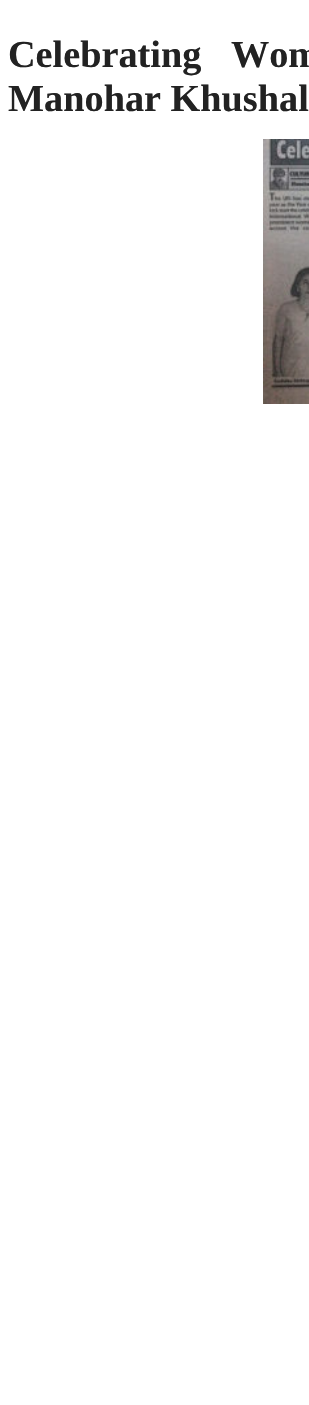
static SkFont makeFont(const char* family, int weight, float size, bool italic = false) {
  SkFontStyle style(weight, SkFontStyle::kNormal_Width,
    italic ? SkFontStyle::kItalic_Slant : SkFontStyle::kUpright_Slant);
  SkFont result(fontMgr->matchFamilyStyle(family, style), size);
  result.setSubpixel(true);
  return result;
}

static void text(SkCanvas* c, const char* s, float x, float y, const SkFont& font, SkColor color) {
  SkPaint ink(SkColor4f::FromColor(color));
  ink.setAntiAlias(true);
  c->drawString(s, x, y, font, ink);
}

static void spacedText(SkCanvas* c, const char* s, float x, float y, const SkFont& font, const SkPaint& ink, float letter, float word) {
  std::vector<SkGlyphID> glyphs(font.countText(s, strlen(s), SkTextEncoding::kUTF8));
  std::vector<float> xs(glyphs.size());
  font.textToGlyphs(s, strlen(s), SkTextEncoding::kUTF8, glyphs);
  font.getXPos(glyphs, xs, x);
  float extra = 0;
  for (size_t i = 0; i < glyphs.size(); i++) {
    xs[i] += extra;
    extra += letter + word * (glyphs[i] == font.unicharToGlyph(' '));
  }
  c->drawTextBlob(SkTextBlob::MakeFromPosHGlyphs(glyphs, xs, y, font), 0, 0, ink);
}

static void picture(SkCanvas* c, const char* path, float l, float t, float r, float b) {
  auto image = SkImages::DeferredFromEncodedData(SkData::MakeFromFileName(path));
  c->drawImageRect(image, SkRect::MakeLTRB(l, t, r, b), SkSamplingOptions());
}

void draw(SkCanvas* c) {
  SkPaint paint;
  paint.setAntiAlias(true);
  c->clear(0xffffffff);
  SkFont face1 = makeFont("Liberation Serif", 700, 38.25f);
  paint.setColor(0xff222222);
  spacedText(c, "Celebrating Wom", 8, 67, face1, paint, 0, 20);
  text(c, "Manohar Khushal", 8, 111, face1, 0xff222222);
  picture(c, "img_01.png", 263, 139, 309, 404);
}
